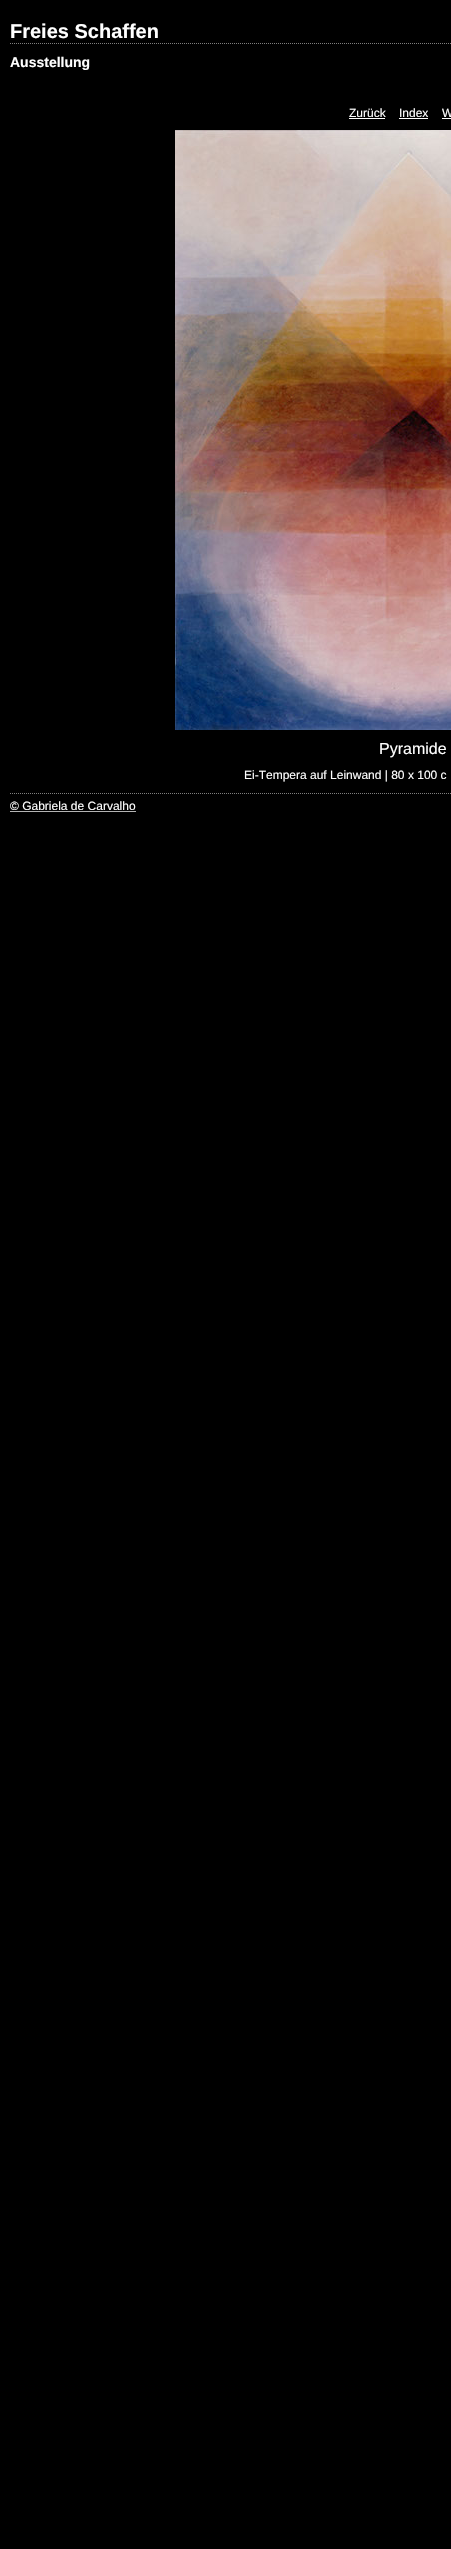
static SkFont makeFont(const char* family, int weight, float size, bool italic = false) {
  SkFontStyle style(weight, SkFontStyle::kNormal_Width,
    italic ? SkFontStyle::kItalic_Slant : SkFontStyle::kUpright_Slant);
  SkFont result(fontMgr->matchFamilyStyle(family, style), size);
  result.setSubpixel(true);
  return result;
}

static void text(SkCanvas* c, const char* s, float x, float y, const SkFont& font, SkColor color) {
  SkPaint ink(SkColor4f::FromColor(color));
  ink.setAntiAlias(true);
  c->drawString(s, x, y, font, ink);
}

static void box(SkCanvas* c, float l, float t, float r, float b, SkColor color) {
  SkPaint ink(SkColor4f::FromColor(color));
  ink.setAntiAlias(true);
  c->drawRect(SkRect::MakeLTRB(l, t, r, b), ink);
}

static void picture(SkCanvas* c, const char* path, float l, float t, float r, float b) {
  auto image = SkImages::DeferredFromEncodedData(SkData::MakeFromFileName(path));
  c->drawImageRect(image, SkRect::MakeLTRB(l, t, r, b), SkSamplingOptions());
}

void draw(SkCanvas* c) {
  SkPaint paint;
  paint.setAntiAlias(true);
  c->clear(0xff000000);
  paint.setStyle(SkPaint::kStroke_Style);
  paint.setStrokeWidth(1);
  paint.setColor(0xff7f7f7f);
  paint.setPathEffect(SkDashPathEffect::Make({{1, 1}}, 0));
  c->drawPath(SkPathBuilder().moveTo(10, 43.5f).lineTo(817, 43.5f).detach(), paint);
  paint.setPathEffect(nullptr);
  SkFont face1 = makeFont("Liberation Sans", 700, 20);
  text(c, "Freies Schaffen", 10, 38, face1, 0xffffffff);
  SkFont face2 = makeFont("Liberation Sans", 700, 14);
  text(c, "Ausstellung", 10, 67, face2, 0xffffffff);
  SkFont face3 = makeFont("Liberation Sans", 400, 12);
  text(c, "Zurück", 349, 117, face3, 0xffffffff);
  box(c, 349, 118, 385, 119, 0xffffffff);
  text(c, "Index", 399, 117, face3, 0xffffffff);
  box(c, 399, 118, 428, 119, 0xffffffff);
  text(c, "W", 442, 117, face3, 0xffffffff);
  box(c, 442, 118, 451, 119, 0xffffffff);
  picture(c, "img_01.png", 175, 130, 451, 730);
  SkFont face4 = makeFont("Liberation Sans", 400, 16);
  text(c, "Pyramide", 379, 754, face4, 0xffffffff);
  text(c, "Ei-Tempera auf Leinwand | 80 x 100 c", 244, 779, face3, 0xffffffff);
  paint.setPathEffect(SkDashPathEffect::Make({{1, 1}}, 0));
  c->drawPath(SkPathBuilder().moveTo(10, 793.5f).lineTo(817, 793.5f).detach(), paint);
  paint.setPathEffect(nullptr);
  text(c, "© Gabriela de Carvalho", 10, 810, face3, 0xffffffff);
  box(c, 10, 811, 136, 812, 0xffb3b3b3);
}
